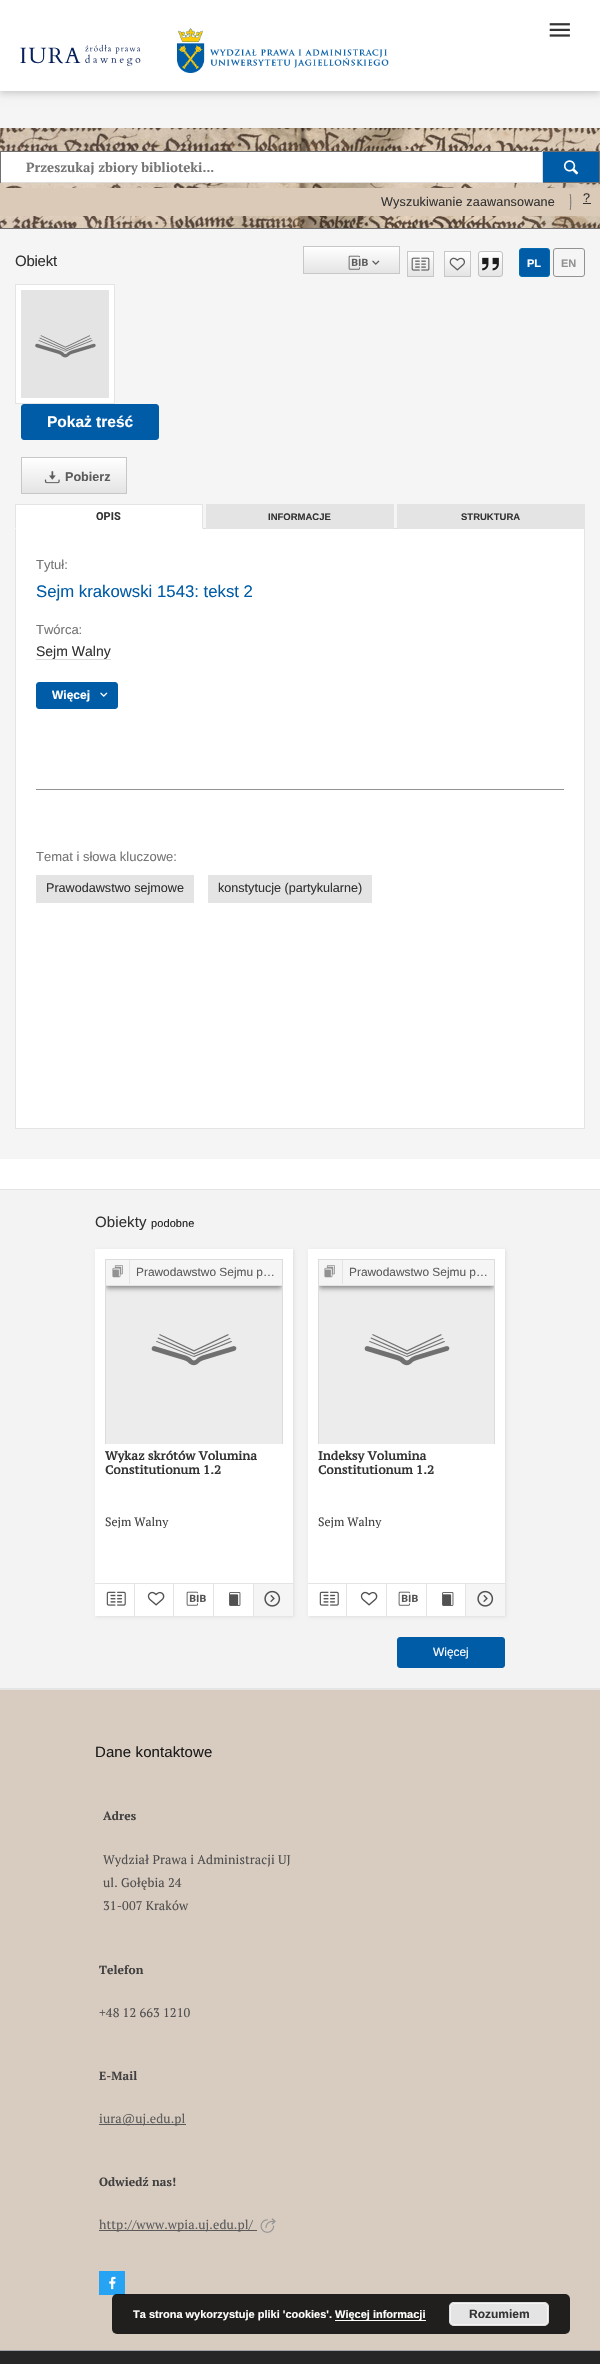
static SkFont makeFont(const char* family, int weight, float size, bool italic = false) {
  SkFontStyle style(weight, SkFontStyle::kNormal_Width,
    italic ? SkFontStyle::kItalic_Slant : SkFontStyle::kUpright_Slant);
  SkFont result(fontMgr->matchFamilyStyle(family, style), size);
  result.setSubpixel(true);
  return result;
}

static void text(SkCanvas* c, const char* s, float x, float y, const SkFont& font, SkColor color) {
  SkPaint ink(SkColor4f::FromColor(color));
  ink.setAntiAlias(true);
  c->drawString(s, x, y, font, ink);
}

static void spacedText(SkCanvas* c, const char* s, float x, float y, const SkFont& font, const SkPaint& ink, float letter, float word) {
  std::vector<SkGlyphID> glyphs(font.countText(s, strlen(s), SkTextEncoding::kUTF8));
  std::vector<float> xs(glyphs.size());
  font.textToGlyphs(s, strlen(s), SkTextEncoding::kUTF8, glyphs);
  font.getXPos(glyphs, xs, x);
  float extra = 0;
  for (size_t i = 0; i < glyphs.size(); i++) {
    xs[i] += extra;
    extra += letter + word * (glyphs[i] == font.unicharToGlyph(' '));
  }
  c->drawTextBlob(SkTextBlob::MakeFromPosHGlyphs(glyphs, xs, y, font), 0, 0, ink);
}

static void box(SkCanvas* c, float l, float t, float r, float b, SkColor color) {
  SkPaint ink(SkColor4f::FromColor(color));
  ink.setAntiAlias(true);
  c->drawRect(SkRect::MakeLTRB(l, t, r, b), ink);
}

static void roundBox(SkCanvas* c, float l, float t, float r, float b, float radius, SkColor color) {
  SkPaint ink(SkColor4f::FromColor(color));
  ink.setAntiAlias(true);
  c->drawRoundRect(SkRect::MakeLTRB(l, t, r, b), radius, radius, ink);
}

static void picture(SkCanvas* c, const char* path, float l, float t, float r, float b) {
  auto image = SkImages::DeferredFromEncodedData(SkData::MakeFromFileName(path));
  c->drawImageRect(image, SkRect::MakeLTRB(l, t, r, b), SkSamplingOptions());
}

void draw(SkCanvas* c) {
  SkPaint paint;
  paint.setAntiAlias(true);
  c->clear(0xffffffff);
  box(c, 0, 91, 600, 128, 0xfff5f5f5);
  paint.setColor(0x14000000);
  paint.setMaskFilter(SkMaskFilter::MakeBlur(kNormal_SkBlurStyle, 5));
  c->drawRect(SkRect::MakeLTRB(0, 1, 600, 92), paint);
  paint.setMaskFilter(nullptr);
  paint.setColor(0x0f000000);
  paint.setMaskFilter(SkMaskFilter::MakeBlur(kNormal_SkBlurStyle, 2.5f));
  c->drawRect(SkRect::MakeLTRB(0, 4, 600, 95), paint);
  paint.setMaskFilter(nullptr);
  paint.setMaskFilter(SkMaskFilter::MakeBlur(kNormal_SkBlurStyle, 2));
  c->drawRect(SkRect::MakeLTRB(1, 3, 599, 92), paint);
  paint.setMaskFilter(nullptr);
  box(c, 0, 0, 600, 91, 0xffffffff);
  picture(c, "img_01.png", 20, 44, 141, 66);
  picture(c, "img_02.png", 177, 28, 389, 73);
  picture(c, "img_03.png", 549, 23, 570, 37);
  picture(c, "img_04.png", 0, 128, 600, 228);
  box(c, 0, 228, 600, 229, 0xff707070);
  box(c, 1, 152, 542, 182, 0xffffffff);
  box(c, 0, 151, 600, 152, 0xff707070);
  box(c, 542, 151, 543, 183, 0xffdcdcdc);
  box(c, 0, 182, 543, 183, 0xffdcdcdc);
  box(c, 0, 151, 1, 183, 0xff707070);
  SkFont face1 = makeFont("PT Serif", 700, 13.25f);
  text(c, "Przeszukaj zbiory biblioteki...", 26, 172, face1, 0xff757575);
  box(c, 543, 152, 599, 182, 0xff005ca7);
  box(c, 599, 151, 600, 183, 0xff707070);
  box(c, 543, 182, 600, 183, 0xff707070);
  picture(c, "img_05.png", 563, 160, 579, 175);
  box(c, 0, 188, 600, 216, 0xffdbcab7);
  paint.setStyle(SkPaint::kStroke_Style);
  paint.setStrokeWidth(1);
  paint.setColor(0xff75726f);
  c->drawPath(SkPathBuilder().moveTo(570, 194).cubicTo(571, 195, 571, 209, 570, 210).detach(), paint);
  SkFont face2 = makeFont("Liberation Sans", 400, 12.6f);
  paint.setStyle(SkPaint::kFill_Style);
  paint.setColor(0xff333333);
  spacedText(c, "Wyszukiwanie zaawansowane", 381, 206, face2, paint, 0.15f, 0);
  text(c, "?", 583, 202, face2, 0xff333333);
  box(c, 583, 203, 591, 204, 0xff333333);
  box(c, 0, 229, 600, 1159, 0xfff5f5f5);
  SkFont face3 = makeFont("Liberation Sans", 400, 15);
  spacedText(c, "Obiekt", 15, 266, face3, paint, -0.25f, 0);
  {
    const SkColor colors[] = {0xffffffff, 0xffe4e4e4};
    const float stops[] = {0, 1};
    const SkPoint ends[] = {{352, 247}, {352, 273}};
    paint.setShader(SkGradientShader::MakeLinear(ends, colors, stops, 2, SkTileMode::kClamp));
    paint.setAlpha(255);
  }
  c->drawRect(SkRect::MakeLTRB(304, 247, 399, 273), paint);
  paint.setStyle(SkPaint::kStroke_Style);
  paint.setShader(nullptr);
  paint.setColor(0xffc7c7c7);
  c->drawRect(SkRect::MakeLTRB(303.5f, 246.5f, 399.5f, 273.5f), paint);
  picture(c, "img_06.png", 348, 255, 368, 270);
  picture(c, "img_07.png", 372, 260, 380, 265);
  paint.setStyle(SkPaint::kFill_Style);
  {
    const SkColor colors[] = {0xffffffff, 0xffe4e4e4};
    const float stops[] = {0, 1};
    const SkPoint ends[] = {{421, 252}, {421, 276}};
    paint.setShader(SkGradientShader::MakeLinear(ends, colors, stops, 2, SkTileMode::kClamp));
    paint.setAlpha(255);
  }
  c->drawRect(SkRect::MakeLTRB(408, 252, 433, 276), paint);
  paint.setStyle(SkPaint::kStroke_Style);
  paint.setShader(nullptr);
  paint.setColor(0xffc7c7c7);
  c->drawRect(SkRect::MakeLTRB(407.5f, 251.5f, 433.5f, 276.5f), paint);
  picture(c, "img_08.png", 411, 257, 430, 271);
  paint.setStyle(SkPaint::kFill_Style);
  {
    const SkColor colors[] = {0xffffffff, 0xffe4e4e4};
    const float stops[] = {0, 1};
    const SkPoint ends[] = {{458, 252}, {458, 276}};
    paint.setShader(SkGradientShader::MakeLinear(ends, colors, stops, 2, SkTileMode::kClamp));
    paint.setAlpha(255);
  }
  c->drawRect(SkRect::MakeLTRB(445, 252, 470, 276), paint);
  paint.setStyle(SkPaint::kStroke_Style);
  paint.setShader(nullptr);
  paint.setColor(0xffc7c7c7);
  c->drawRect(SkRect::MakeLTRB(444.5f, 251.5f, 470.5f, 276.5f), paint);
  picture(c, "img_09.png", 449, 257, 465, 271);
  c->save();
  c->clipPath(SkPathBuilder().moveTo(481, 251).lineTo(500, 251).cubicTo(501.5f, 251, 503, 252.5f, 503, 254).lineTo(503, 274).cubicTo(503, 275.5f, 501.5f, 277, 500, 277).lineTo(481, 277).cubicTo(479.5f, 277, 478, 275.5f, 478, 274).lineTo(478, 254).cubicTo(478, 252.5f, 479.5f, 251, 481, 251).close().detach(), true);
  paint.setStyle(SkPaint::kFill_Style);
  {
    const SkColor colors[] = {0xffffffff, 0xffe4e4e4};
    const float stops[] = {0, 1};
    const SkPoint ends[] = {{491, 252}, {491, 276}};
    paint.setShader(SkGradientShader::MakeLinear(ends, colors, stops, 2, SkTileMode::kClamp));
    paint.setAlpha(255);
  }
  c->drawRect(SkRect::MakeLTRB(478, 252, 503, 276), paint);
  c->restore();
  paint.setStyle(SkPaint::kStroke_Style);
  paint.setShader(nullptr);
  paint.setColor(0xffc1c1c1);
  c->drawRoundRect(SkRect::MakeLTRB(478.5f, 251.5f, 502.5f, 276.5f), 2.5f, 2.5f, paint);
  picture(c, "img_10.png", 482, 257, 499, 271);
  paint.setStyle(SkPaint::kFill_Style);
  paint.setColor(0xff005ca7);
  c->drawRoundRect(SkRect::MakeLTRB(519.5f, 248.5f, 549.5f, 276.5f), 2.5f, 2.5f, paint);
  paint.setStyle(SkPaint::kStroke_Style);
  paint.setColor(0xff006baf);
  c->drawRoundRect(SkRect::MakeLTRB(519.5f, 248.5f, 549.5f, 276.5f), 2.5f, 2.5f, paint);
  SkFont face4 = makeFont("Liberation Sans", 700, 11);
  text(c, "PL", 527, 267, face4, 0xffffffff);
  paint.setColor(0xff929292);
  c->drawRoundRect(SkRect::MakeLTRB(553.5f, 248.5f, 584.5f, 276.5f), 2.5f, 2.5f, paint);
  text(c, "EN", 561, 267, face4, 0xff929292);
  paint.setStyle(SkPaint::kFill_Style);
  paint.setColor(0xffffffff);
  c->drawRect(SkRect::MakeLTRB(15.5f, 284.5f, 114.5f, 403.5f), paint);
  paint.setStyle(SkPaint::kStroke_Style);
  paint.setColor(0xffe4e4e4);
  c->drawRect(SkRect::MakeLTRB(15.5f, 284.5f, 114.5f, 403.5f), paint);
  box(c, 21, 290, 109, 398, 0xffe4e4e4);
  picture(c, "img_11.png", 35, 335, 96, 358);
  paint.setStyle(SkPaint::kFill_Style);
  paint.setColor(0xff005ca7);
  c->drawRoundRect(SkRect::MakeLTRB(21.5f, 404.5f, 158.5f, 439.5f), 2.5f, 2.5f, paint);
  paint.setStyle(SkPaint::kStroke_Style);
  c->drawRoundRect(SkRect::MakeLTRB(21.5f, 404.5f, 158.5f, 439.5f), 2.5f, 2.5f, paint);
  SkFont face5 = makeFont("Liberation Sans", 700, 15.5f);
  text(c, "Pokaż treść", 47, 427, face5, 0xffffffff);
  paint.setStyle(SkPaint::kFill_Style);
  {
    const SkColor colors[] = {0xffffffff, 0xffe4e4e4};
    const float stops[] = {0, 1};
    const SkPoint ends[] = {{74, 458}, {74, 493}};
    paint.setShader(SkGradientShader::MakeLinear(ends, colors, stops, 2, SkTileMode::kClamp));
    paint.setAlpha(255);
  }
  c->drawRect(SkRect::MakeLTRB(22, 458, 126, 493), paint);
  paint.setStyle(SkPaint::kStroke_Style);
  paint.setShader(nullptr);
  paint.setColor(0xffc7c7c7);
  c->drawRect(SkRect::MakeLTRB(21.5f, 457.5f, 126.5f, 493.5f), paint);
  picture(c, "img_12.png", 44, 471, 60, 484);
  SkFont face6 = makeFont("Liberation Sans", 700, 12.6f);
  text(c, "Pobierz", 65, 481, face6, 0xff5c5c5c);
  box(c, 203, 528, 397, 529, 0xffdddddd);
  box(c, 15, 505, 203, 529, 0xffffffff);
  box(c, 15, 504, 203, 505, 0xffe4e4e4);
  paint.setStyle(SkPaint::kFill_Style);
  paint.setColor(0xffe4e4e4);
  c->drawPath(SkPathBuilder().moveTo(203, 504).lineTo(203, 529).lineTo(202, 528).lineTo(202, 505).close().detach(), paint);
  c->drawPath(SkPathBuilder().moveTo(15, 529).lineTo(15, 504).lineTo(16, 505).lineTo(16, 528).close().detach(), paint);
  SkFont face7 = makeFont("Roboto", 700, 11);
  text(c, "OPIS", 96, 520, face7, 0xff333333);
  box(c, 206, 504, 394, 529, 0xffe4e4e4);
  SkFont face8 = makeFont("Liberation Sans", 700, 9.5f);
  text(c, "INFORMACJE", 268, 520, face8, 0xff333333);
  box(c, 397, 504, 585, 529, 0xffe4e4e4);
  text(c, "STRUKTURA", 461, 520, face8, 0xff333333);
  box(c, 16, 529, 584, 1128, 0xffffffff);
  box(c, 584, 529, 585, 1129, 0xffe4e4e4);
  box(c, 15, 1128, 585, 1129, 0xffe4e4e4);
  box(c, 15, 529, 16, 1129, 0xffe4e4e4);
  SkFont face9 = makeFont("Liberation Sans", 400, 13);
  text(c, "Tytuł:", 36, 569, face9, 0xff757575);
  SkFont face10 = makeFont("Liberation Sans", 400, 16.75f);
  text(c, "Sejm krakowski 1543: tekst 2", 36, 597, face10, 0xff005ca7);
  text(c, "Twórca:", 36, 634, face9, 0xff757575);
  SkFont face11 = makeFont("Liberation Sans", 400, 14);
  text(c, "Sejm Walny", 36, 656, face11, 0xff333333);
  box(c, 36, 659, 111, 660, 0xffdcdcdc);
  paint.setColor(0xff005ca7);
  c->drawRoundRect(SkRect::MakeLTRB(36.5f, 682.5f, 117.5f, 708.5f), 2.5f, 2.5f, paint);
  paint.setStyle(SkPaint::kStroke_Style);
  c->drawRoundRect(SkRect::MakeLTRB(36.5f, 682.5f, 117.5f, 708.5f), 2.5f, 2.5f, paint);
  SkFont face12 = makeFont("Liberation Sans", 700, 12);
  text(c, "Więcej", 52, 699, face12, 0xffffffff);
  picture(c, "img_13.png", 100, 692, 108, 697);
  box(c, 36, 789, 564, 790, 0xff929292);
  text(c, "Temat i słowa kluczowe:", 36, 861, face9, 0xff757575);
  box(c, 36, 875, 194, 903, 0xffe4e4e4);
  text(c, "Prawodawstwo sejmowe", 46, 892, face2, 0xff333333);
  box(c, 208, 875, 372, 903, 0xffe4e4e4);
  text(c, "konstytucje (partykularne)", 218, 892, face2, 0xff333333);
  box(c, 0, 1190, 600, 1688, 0xfff4f3f3);
  box(c, 0, 1189, 600, 1190, 0xffe4e4e4);
  box(c, 0, 1688, 600, 1690, 0xffe4e4e4);
  paint.setStyle(SkPaint::kFill_Style);
  paint.setColor(0xff333333);
  spacedText(c, "Obiekty", 95, 1227, face3, paint, 0.1f, 0);
  SkFont face13 = makeFont("Liberation Sans", 400, 11);
  paint.setColor(0xff1c1c1c);
  spacedText(c, "podobne", 151, 1227, face13, paint, 0.1f, 0);
  paint.setColor(0xffdedede);
  paint.setMaskFilter(SkMaskFilter::MakeBlur(kNormal_SkBlurStyle, 1.5f));
  c->drawRect(SkRect::MakeLTRB(96, 1250, 294, 1617), paint);
  paint.setMaskFilter(nullptr);
  box(c, 95, 1249, 293, 1616, 0xffffffff);
  box(c, 106, 1286, 282, 1444, 0xffececec);
  paint.setStyle(SkPaint::kStroke_Style);
  paint.setColor(0xffdcdcdc);
  c->drawRect(SkRect::MakeLTRB(105.5f, 1259.5f, 282.5f, 1453.5f), paint);
  c->save();
  c->clipRect(SkRect::MakeLTRB(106, 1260, 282, 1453));
  paint.setStyle(SkPaint::kFill_Style);
  paint.setColor(0x73000000);
  paint.setMaskFilter(SkMaskFilter::MakeBlur(kNormal_SkBlurStyle, 2.5f));
  c->drawRect(SkRect::MakeLTRB(106, 1262, 282, 1288), paint);
  paint.setMaskFilter(nullptr);
  c->restore();
  box(c, 106, 1260, 282, 1285, 0xfff5f5f5);
  box(c, 106, 1285, 282, 1286, 0xffe4e4e4);
  picture(c, "img_14.png", 112, 1265, 123, 1278);
  SkFont face14 = makeFont("Liberation Sans", 400, 11.9f);
  text(c, "Prawodawstwo Sejmu p…", 136, 1276, face14, 0xff5c5c5c);
  box(c, 129, 1260, 130, 1284, 0xffe4e4e4);
  picture(c, "img_15.png", 151, 1334, 237, 1366);
  box(c, 105, 1444, 283, 1454, 0xffffffff);
  SkFont face15 = makeFont("PT Serif Caption", 700, 11.9f);
  text(c, "Wykaz skrótów Volumina", 105, 1460, face15, 0xff333333);
  text(c, "Constitutionum 1.2", 105, 1474, face15, 0xff333333);
  c->save();
  c->clipRect(SkRect::MakeLTRB(105, 1514, 283, 1528));
  SkFont face16 = makeFont("PT Serif", 400, 12);
  text(c, "Sejm Walny", 105, 1526, face16, 0xff404040);
  c->restore();
  box(c, 95, 1583, 293, 1584, 0xffe4e4e4);
  box(c, 134, 1584, 135, 1616, 0xffe4e4e4);
  picture(c, "img_16.png", 106, 1591, 126, 1606);
  box(c, 173, 1584, 174, 1616, 0xffe4e4e4);
  picture(c, "img_17.png", 147, 1591, 165, 1606);
  box(c, 213, 1584, 214, 1616, 0xffe4e4e4);
  picture(c, "img_18.png", 186, 1591, 206, 1606);
  box(c, 253, 1584, 254, 1616, 0xffe4e4e4);
  picture(c, "img_19.png", 229, 1592, 241, 1606);
  box(c, 254, 1584, 293, 1616, 0xfff5f5f5);
  picture(c, "img_20.png", 264, 1590, 281, 1607);
  paint.setColor(0xffdedede);
  paint.setMaskFilter(SkMaskFilter::MakeBlur(kNormal_SkBlurStyle, 1.5f));
  c->drawRect(SkRect::MakeLTRB(309, 1250, 506, 1617), paint);
  paint.setMaskFilter(nullptr);
  box(c, 308, 1249, 505, 1616, 0xffffffff);
  box(c, 319, 1286, 494, 1444, 0xffececec);
  paint.setStyle(SkPaint::kStroke_Style);
  paint.setColor(0xffdcdcdc);
  c->drawRect(SkRect::MakeLTRB(318.5f, 1259.5f, 494.5f, 1453.5f), paint);
  c->save();
  c->clipRect(SkRect::MakeLTRB(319, 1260, 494, 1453));
  paint.setStyle(SkPaint::kFill_Style);
  paint.setColor(0x73000000);
  paint.setMaskFilter(SkMaskFilter::MakeBlur(kNormal_SkBlurStyle, 2.5f));
  c->drawRect(SkRect::MakeLTRB(319, 1262, 494, 1288), paint);
  paint.setMaskFilter(nullptr);
  c->restore();
  box(c, 319, 1260, 494, 1285, 0xfff5f5f5);
  box(c, 319, 1285, 494, 1286, 0xffe4e4e4);
  picture(c, "img_14.png", 324, 1265, 335, 1278);
  text(c, "Prawodawstwo Sejmu p…", 349, 1276, face14, 0xff5c5c5c);
  box(c, 342, 1260, 343, 1284, 0xffe4e4e4);
  picture(c, "img_15.png", 364, 1334, 450, 1366);
  box(c, 318, 1444, 495, 1454, 0xffffffff);
  text(c, "Indeksy Volumina", 318, 1460, face15, 0xff333333);
  text(c, "Constitutionum 1.2", 318, 1474, face15, 0xff333333);
  c->save();
  c->clipRect(SkRect::MakeLTRB(318, 1514, 495, 1528));
  text(c, "Sejm Walny", 318, 1526, face16, 0xff404040);
  c->restore();
  box(c, 308, 1583, 505, 1584, 0xffe4e4e4);
  box(c, 346, 1584, 347, 1616, 0xffe4e4e4);
  picture(c, "img_16.png", 319, 1591, 339, 1606);
  box(c, 386, 1584, 387, 1616, 0xffe4e4e4);
  picture(c, "img_17.png", 360, 1591, 378, 1606);
  box(c, 426, 1584, 427, 1616, 0xffe4e4e4);
  picture(c, "img_18.png", 398, 1591, 418, 1606);
  box(c, 465, 1584, 466, 1616, 0xffe4e4e4);
  picture(c, "img_19.png", 442, 1592, 454, 1606);
  box(c, 466, 1584, 505, 1616, 0xfff5f5f5);
  picture(c, "img_20.png", 477, 1590, 494, 1607);
  paint.setColor(0xff005ca7);
  c->drawRoundRect(SkRect::MakeLTRB(397.5f, 1637.5f, 504.5f, 1667.5f), 2.5f, 2.5f, paint);
  paint.setStyle(SkPaint::kStroke_Style);
  c->drawRoundRect(SkRect::MakeLTRB(397.5f, 1637.5f, 504.5f, 1667.5f), 2.5f, 2.5f, paint);
  text(c, "Więcej", 433, 1656, face14, 0xffffffff);
  box(c, 0, 1690, 600, 2350, 0xffd8cbbf);
  paint.setStyle(SkPaint::kFill_Style);
  paint.setColor(0xff1c1c1c);
  spacedText(c, "Dane kontaktowe", 95, 1757, face3, paint, 0.1f, 0);
  SkFont face17 = makeFont("PT Serif", 700, 11.9f);
  paint.setColor(0xff404040);
  spacedText(c, "Adres", 103, 1820, face17, paint, 0.1f, 0);
  SkFont face18 = makeFont("PT Serif", 400, 12.6f);
  paint.setColor(0xff4f4f4f);
  spacedText(c, "Wydział Prawa i Administracji UJ", 103, 1864, face18, paint, 0.1f, 0);
  spacedText(c, "ul. Gołębia 24", 103, 1887, face18, paint, 0.1f, 0);
  spacedText(c, "31-007 Kraków", 103, 1910, face18, paint, 0.1f, 0);
  paint.setColor(0xff404040);
  spacedText(c, "Telefon", 99, 1974, face17, paint, 0.1f, 0);
  paint.setColor(0xff4f4f4f);
  spacedText(c, "+48 12 663 1210", 99, 2017, face18, paint, 0.1f, 0);
  paint.setColor(0xff404040);
  spacedText(c, "E-Mail", 99, 2080, face17, paint, 0.1f, 0);
  box(c, 99, 2124, 186, 2125, 0xff5a5a5a);
  paint.setColor(0xff5c5c5c);
  spacedText(c, "iura@uj.edu.pl", 99, 2123, face18, paint, 0.1f, 0);
  paint.setColor(0xff404040);
  spacedText(c, "Odwiedź nas!", 99, 2186, face17, paint, 0.1f, 0);
  box(c, 99, 2230, 257, 2231, 0xff5a5a5a);
  paint.setColor(0xff5c5c5c);
  spacedText(c, "http://www.wpia.uj.edu.pl/", 99, 2229, face18, paint, 0.1f, 0);
  picture(c, "img_21.png", 260, 2218, 276, 2233);
  box(c, 99, 2271, 125, 2295, 0xff26a3f2);
  picture(c, "img_22.png", 109, 2276, 116, 2290);
  roundBox(c, 112, 2294, 570, 2334, 5, 0xd9000000);
  text(c, "Ta strona wykorzystuje pliki 'cookies'.", 133, 2318, face4, 0xffffffff);
  box(c, 335, 2320, 426, 2321, 0xffffffff);
  text(c, "Więcej informacji", 335, 2318, face4, 0xffffffff);
  roundBox(c, 449, 2302, 549, 2326, 5, 0xffe4e4e4);
  paint.setStyle(SkPaint::kStroke_Style);
  paint.setColor(0xfff5f5f5);
  c->drawRoundRect(SkRect::MakeLTRB(450.5f, 2303.5f, 547.5f, 2324.5f), 3.5f, 3.5f, paint);
  paint.setColor(0xffdcdcdc);
  c->drawRoundRect(SkRect::MakeLTRB(449.5f, 2302.5f, 548.5f, 2325.5f), 4.5f, 4.5f, paint);
  text(c, "Rozumiem", 469, 2318, face12, 0xff333333);
  box(c, 0, 2351, 600, 2364, 0xff262626);
  box(c, 0, 2350, 600, 2351, 0xff9fa3a7);
}
